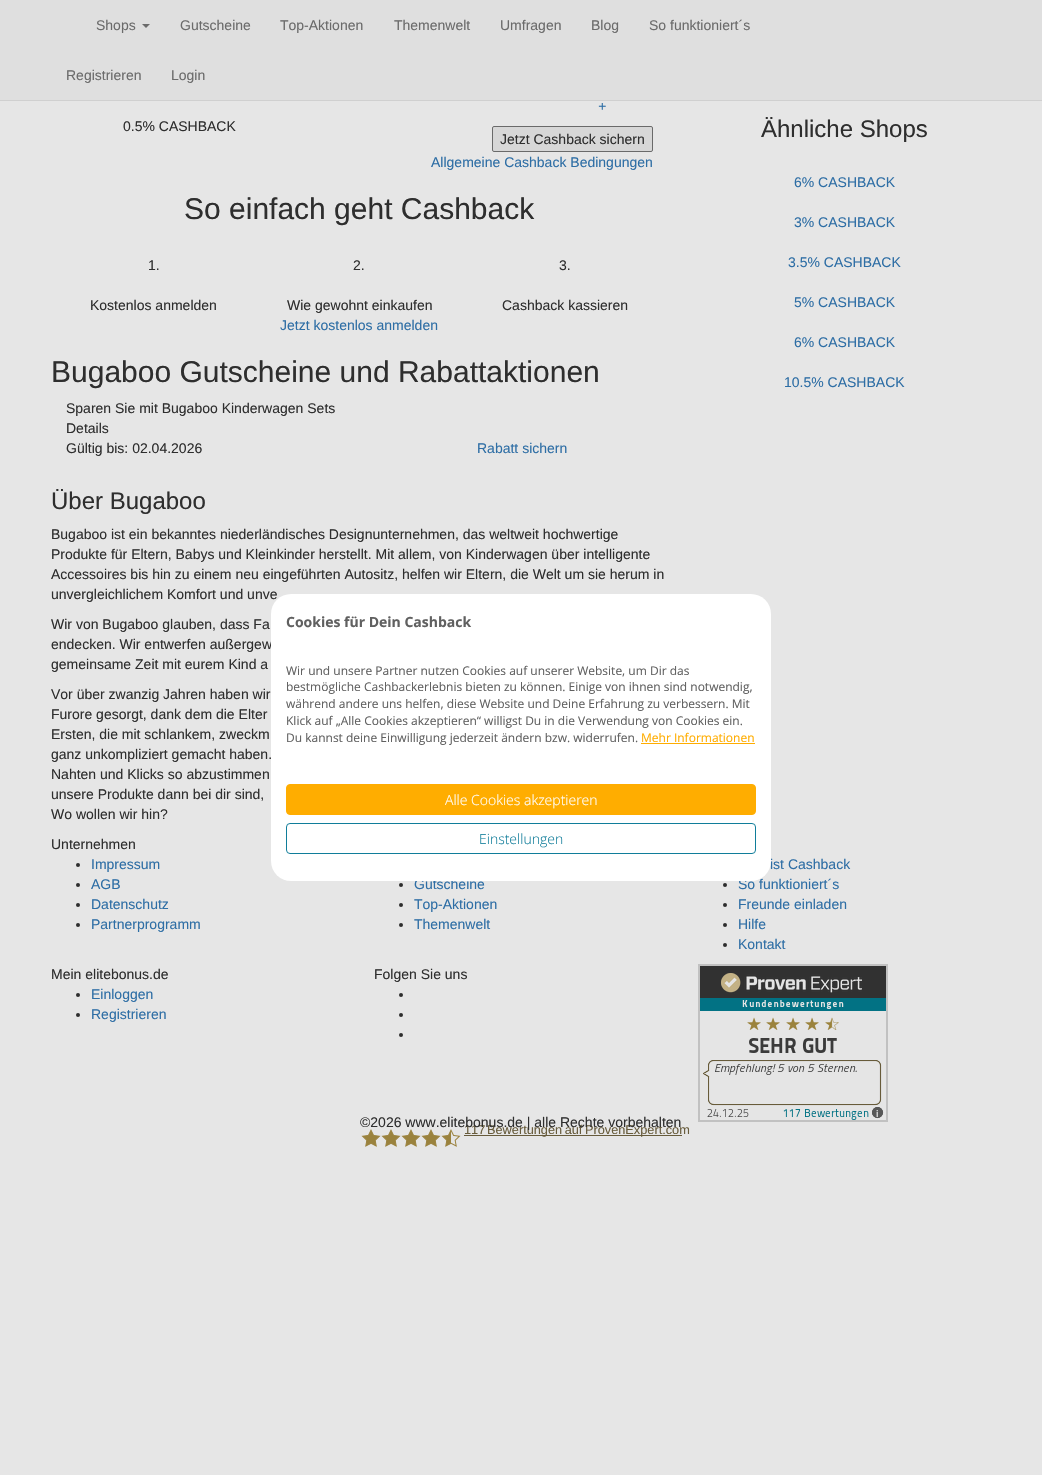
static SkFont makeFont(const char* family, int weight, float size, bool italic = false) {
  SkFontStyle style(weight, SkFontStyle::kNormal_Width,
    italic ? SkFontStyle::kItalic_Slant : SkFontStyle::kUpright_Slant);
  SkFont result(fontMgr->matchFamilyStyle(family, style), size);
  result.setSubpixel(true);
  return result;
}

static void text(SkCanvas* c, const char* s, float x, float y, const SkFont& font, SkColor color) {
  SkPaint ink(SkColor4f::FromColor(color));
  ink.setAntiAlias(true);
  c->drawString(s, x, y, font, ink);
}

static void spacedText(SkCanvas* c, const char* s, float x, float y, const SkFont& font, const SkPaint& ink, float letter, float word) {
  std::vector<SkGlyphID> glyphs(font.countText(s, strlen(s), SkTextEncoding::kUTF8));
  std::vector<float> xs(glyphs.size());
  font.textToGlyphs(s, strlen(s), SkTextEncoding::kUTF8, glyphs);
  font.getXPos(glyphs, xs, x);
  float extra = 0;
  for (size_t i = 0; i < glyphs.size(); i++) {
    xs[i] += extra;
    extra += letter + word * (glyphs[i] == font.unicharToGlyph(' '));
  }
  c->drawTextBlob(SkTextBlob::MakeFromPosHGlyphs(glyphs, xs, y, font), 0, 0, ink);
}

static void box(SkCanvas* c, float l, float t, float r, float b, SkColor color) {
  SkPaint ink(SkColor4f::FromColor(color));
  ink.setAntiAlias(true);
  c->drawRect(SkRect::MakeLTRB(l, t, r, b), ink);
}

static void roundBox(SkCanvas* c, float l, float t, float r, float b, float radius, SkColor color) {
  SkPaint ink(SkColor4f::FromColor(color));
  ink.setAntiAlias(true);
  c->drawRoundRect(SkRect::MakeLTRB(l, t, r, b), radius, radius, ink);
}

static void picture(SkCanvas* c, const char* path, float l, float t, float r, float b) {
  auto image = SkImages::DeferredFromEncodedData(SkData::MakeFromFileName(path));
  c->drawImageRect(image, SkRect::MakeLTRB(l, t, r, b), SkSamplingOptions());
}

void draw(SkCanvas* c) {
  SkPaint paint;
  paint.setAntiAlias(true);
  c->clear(0xffe6e6e6);
  box(c, 0, 0, 1042, 100, 0xffdfdfdf);
  box(c, 0, 100, 1042, 101, 0xffd0d0d0);
  SkFont face1 = makeFont("Liberation Sans", 400, 14);
  text(c, "Shops", 96, 30, face1, 0xff6b6b6b);
  paint.setColor(0xff6b6b6b);
  c->drawPath(SkPathBuilder().moveTo(142, 24).lineTo(150, 24).lineTo(146, 28).close().detach(), paint);
  text(c, "Gutscheine", 180, 30, face1, 0xff6b6b6b);
  text(c, "Top-Aktionen", 280, 30, face1, 0xff6b6b6b);
  text(c, "Themenwelt", 394, 30, face1, 0xff6b6b6b);
  text(c, "Umfragen", 500, 30, face1, 0xff6b6b6b);
  text(c, "Blog", 591, 30, face1, 0xff6b6b6b);
  text(c, "So funktioniert´s", 649, 30, face1, 0xff6b6b6b);
  text(c, "Registrieren", 66, 80, face1, 0xff6b6b6b);
  text(c, "Login", 171, 80, face1, 0xff6b6b6b);
  text(c, "0.5% CASHBACK", 123, 131, face1, 0xff2e2e2e);
  SkFont face2 = makeFont("Liberation Sans", 400, 14, true);
  text(c, "+", 598, 111, face2, 0xff2e6ea5);
  paint.setColor(0xffd7d7d7);
  c->drawRoundRect(SkRect::MakeLTRB(492.5f, 126.5f, 652.5f, 151.5f), 1.5f, 1.5f, paint);
  paint.setStyle(SkPaint::kStroke_Style);
  paint.setStrokeWidth(1);
  paint.setColor(0xff6a6a6a);
  c->drawRoundRect(SkRect::MakeLTRB(492.5f, 126.5f, 652.5f, 151.5f), 1.5f, 1.5f, paint);
  text(c, "Jetzt Cashback sichern", 500, 144, face1, 0xff2e2e2e);
  text(c, "Allgemeine Cashback Bedingungen", 431, 167, face1, 0xff2e6ea5);
  SkFont face3 = makeFont("Liberation Sans", 400, 30);
  text(c, "So einfach geht Cashback", 184, 219, face3, 0xff2e2e2e);
  text(c, "1.", 148, 270, face1, 0xff2e2e2e);
  text(c, "Kostenlos anmelden", 90, 310, face1, 0xff2e2e2e);
  text(c, "2.", 353, 270, face1, 0xff2e2e2e);
  text(c, "Wie gewohnt einkaufen", 287, 310, face1, 0xff2e2e2e);
  text(c, "3.", 559, 270, face1, 0xff2e2e2e);
  text(c, "Cashback kassieren", 502, 310, face1, 0xff2e2e2e);
  text(c, "Jetzt kostenlos anmelden", 280, 330, face1, 0xff2e6ea5);
  text(c, "Bugaboo Gutscheine und Rabattaktionen", 51, 382, face3, 0xff2e2e2e);
  text(c, "Sparen Sie mit Bugaboo Kinderwagen Sets", 66, 413, face1, 0xff2e2e2e);
  text(c, "Details", 66, 433, face1, 0xff2e2e2e);
  text(c, "Gültig bis: 02.04.2026", 66, 453, face1, 0xff2e2e2e);
  text(c, "Rabatt sichern", 477, 453, face1, 0xff2e6ea5);
  SkFont face4 = makeFont("Liberation Sans", 400, 24);
  text(c, "Über Bugaboo", 51, 509, face4, 0xff2e2e2e);
  text(c, "Bugaboo ist ein bekanntes niederländisches Designunternehmen, das weltweit hochwertige", 51, 539, face1, 0xff2e2e2e);
  text(c, "Produkte für Eltern, Babys und Kleinkinder herstellt. Mit allem, von Kinderwagen über intelligente", 51, 559, face1, 0xff2e2e2e);
  text(c, "Accessoires bis hin zu einem neu eingeführten Autositz, helfen wir Eltern, die Welt um sie herum in", 51, 579, face1, 0xff2e2e2e);
  text(c, "unvergleichlichem Komfort und unve", 51, 599, face1, 0xff2e2e2e);
  text(c, "Wir von Bugaboo glauben, dass Fa", 51, 629, face1, 0xff2e2e2e);
  text(c, "endecken. Wir entwerfen außergew", 51, 649, face1, 0xff2e2e2e);
  text(c, "gemeinsame Zeit mit eurem Kind a", 51, 669, face1, 0xff2e2e2e);
  text(c, "Vor über zwanzig Jahren haben wir", 51, 699, face1, 0xff2e2e2e);
  text(c, "Furore gesorgt, dank dem die Elter", 51, 719, face1, 0xff2e2e2e);
  text(c, "Ersten, die mit schlankem, zweckm", 51, 739, face1, 0xff2e2e2e);
  text(c, "ganz unkompliziert gemacht haben.", 51, 759, face1, 0xff2e2e2e);
  text(c, "Nahten und Klicks so abzustimmen", 51, 779, face1, 0xff2e2e2e);
  text(c, "unsere Produkte dann bei dir sind,", 51, 799, face1, 0xff2e2e2e);
  text(c, "Wo wollen wir hin?", 51, 819, face1, 0xff2e2e2e);
  text(c, "Ähnliche Shops", 761, 137, face4, 0xff2e2e2e);
  text(c, "6% CASHBACK", 794, 187, face1, 0xff2e6ea5);
  text(c, "3% CASHBACK", 794, 227, face1, 0xff2e6ea5);
  text(c, "3.5% CASHBACK", 788, 267, face1, 0xff2e6ea5);
  text(c, "5% CASHBACK", 794, 307, face1, 0xff2e6ea5);
  text(c, "6% CASHBACK", 794, 347, face1, 0xff2e6ea5);
  text(c, "10.5% CASHBACK", 784, 387, face1, 0xff2e6ea5);
  text(c, "Unternehmen", 51, 849, face1, 0xff2e2e2e);
  paint.setStyle(SkPaint::kFill_Style);
  paint.setColor(0xff2e2e2e);
  c->drawCircle(78, 865, 2, paint);
  text(c, "Impressum", 91, 869, face1, 0xff2e6ea5);
  c->drawCircle(78, 885, 2, paint);
  text(c, "AGB", 91, 889, face1, 0xff2e6ea5);
  c->drawCircle(78, 905, 2, paint);
  text(c, "Datenschutz", 91, 909, face1, 0xff2e6ea5);
  c->drawCircle(78, 925, 2, paint);
  text(c, "Partnerprogramm", 91, 929, face1, 0xff2e6ea5);
  c->drawCircle(401, 885, 2, paint);
  text(c, "Gutscheine", 414, 889, face1, 0xff2e6ea5);
  c->drawCircle(401, 905, 2, paint);
  text(c, "Top-Aktionen", 414, 909, face1, 0xff2e6ea5);
  c->drawCircle(401, 925, 2, paint);
  text(c, "Themenwelt", 414, 929, face1, 0xff2e6ea5);
  text(c, "ist Cashback", 770, 869, face1, 0xff2e6ea5);
  c->drawCircle(725, 885, 2, paint);
  text(c, "So funktioniert´s", 738, 889, face1, 0xff2e6ea5);
  c->drawCircle(725, 905, 2, paint);
  text(c, "Freunde einladen", 738, 909, face1, 0xff2e6ea5);
  c->drawCircle(725, 925, 2, paint);
  text(c, "Hilfe", 738, 929, face1, 0xff2e6ea5);
  c->drawCircle(725, 945, 2, paint);
  text(c, "Kontakt", 738, 949, face1, 0xff2e6ea5);
  text(c, "Mein elitebonus.de", 51, 979, face1, 0xff2e2e2e);
  c->drawCircle(78, 995, 2, paint);
  text(c, "Einloggen", 91, 999, face1, 0xff2e6ea5);
  c->drawCircle(78, 1015, 2, paint);
  text(c, "Registrieren", 91, 1019, face1, 0xff2e6ea5);
  text(c, "Folgen Sie uns", 374, 979, face1, 0xff2e2e2e);
  c->drawCircle(401, 995, 2, paint);
  c->drawCircle(401, 1015, 2, paint);
  c->drawCircle(401, 1035, 2, paint);
  picture(c, "img_01.png", 698, 964, 888, 1122);
  picture(c, "img_02.png", 361, 1129, 381, 1147);
  picture(c, "img_02.png", 381, 1129, 401, 1147);
  picture(c, "img_02.png", 401, 1129, 421, 1147);
  picture(c, "img_02.png", 421, 1129, 441, 1147);
  picture(c, "img_03.png", 441, 1129, 461, 1147);
  SkFont face5 = makeFont("Liberation Sans", 400, 12.75f);
  text(c, "117", 464, 1134, face5, 0xff675b3b);
  box(c, 464, 1135, 682, 1136, 0xff675b3b);
  paint.setColor(0xff675b3b);
  spacedText(c, "Bewertungen auf ProvenExpert.com", 487, 1134, face5, paint, 0, -1);
  text(c, "©2026 www.elitebonus.de | alle Rechte vorbehalten", 360, 1127, face1, 0xff2e2e2e);
  roundBox(c, 271, 594, 771, 881, 20, 0xffffffff);
  SkFont face6 = makeFont("Open Sans", 700, 14);
  text(c, "Cookies für Dein Cashback", 286, 627, face6, 0xff606060);
  SkFont face7 = makeFont("Open Sans", 400, 12);
  text(c, "Wir und unsere Partner nutzen Cookies auf unserer Website, um Dir das", 286, 675, face7, 0xff606060);
  text(c, "bestmögliche Cashbackerlebnis bieten zu können. Einige von ihnen sind notwendig,", 286, 691, face7, 0xff606060);
  text(c, "während andere uns helfen, diese Website und Deine Erfahrung zu verbessern. Mit", 286, 708, face7, 0xff606060);
  text(c, "Klick auf „Alle Cookies akzeptieren“ willigst Du in die Verwendung von Cookies ein.", 286, 725, face7, 0xff606060);
  text(c, "Du kannst deine Einwilligung jederzeit ändern bzw. widerrufen.", 286, 742, face7, 0xff606060);
  text(c, "Mehr Informationen", 641, 742, face7, 0xffffad00);
  box(c, 641, 743, 755, 744, 0xffffad00);
  paint.setColor(0xffffad00);
  c->drawRoundRect(SkRect::MakeLTRB(286.5f, 784.5f, 755.5f, 814.5f), 3.5f, 3.5f, paint);
  paint.setStyle(SkPaint::kStroke_Style);
  c->drawRoundRect(SkRect::MakeLTRB(286.5f, 784.5f, 755.5f, 814.5f), 3.5f, 3.5f, paint);
  SkFont face8 = makeFont("Open Sans", 300, 14);
  text(c, "Alle Cookies akzeptieren", 445, 805, face8, 0xffffffff);
  paint.setColor(0xff107d9a);
  c->drawRoundRect(SkRect::MakeLTRB(286.5f, 823.5f, 755.5f, 853.5f), 3.5f, 3.5f, paint);
  text(c, "Einstellungen", 479, 844, face8, 0xff107d9a);
}
